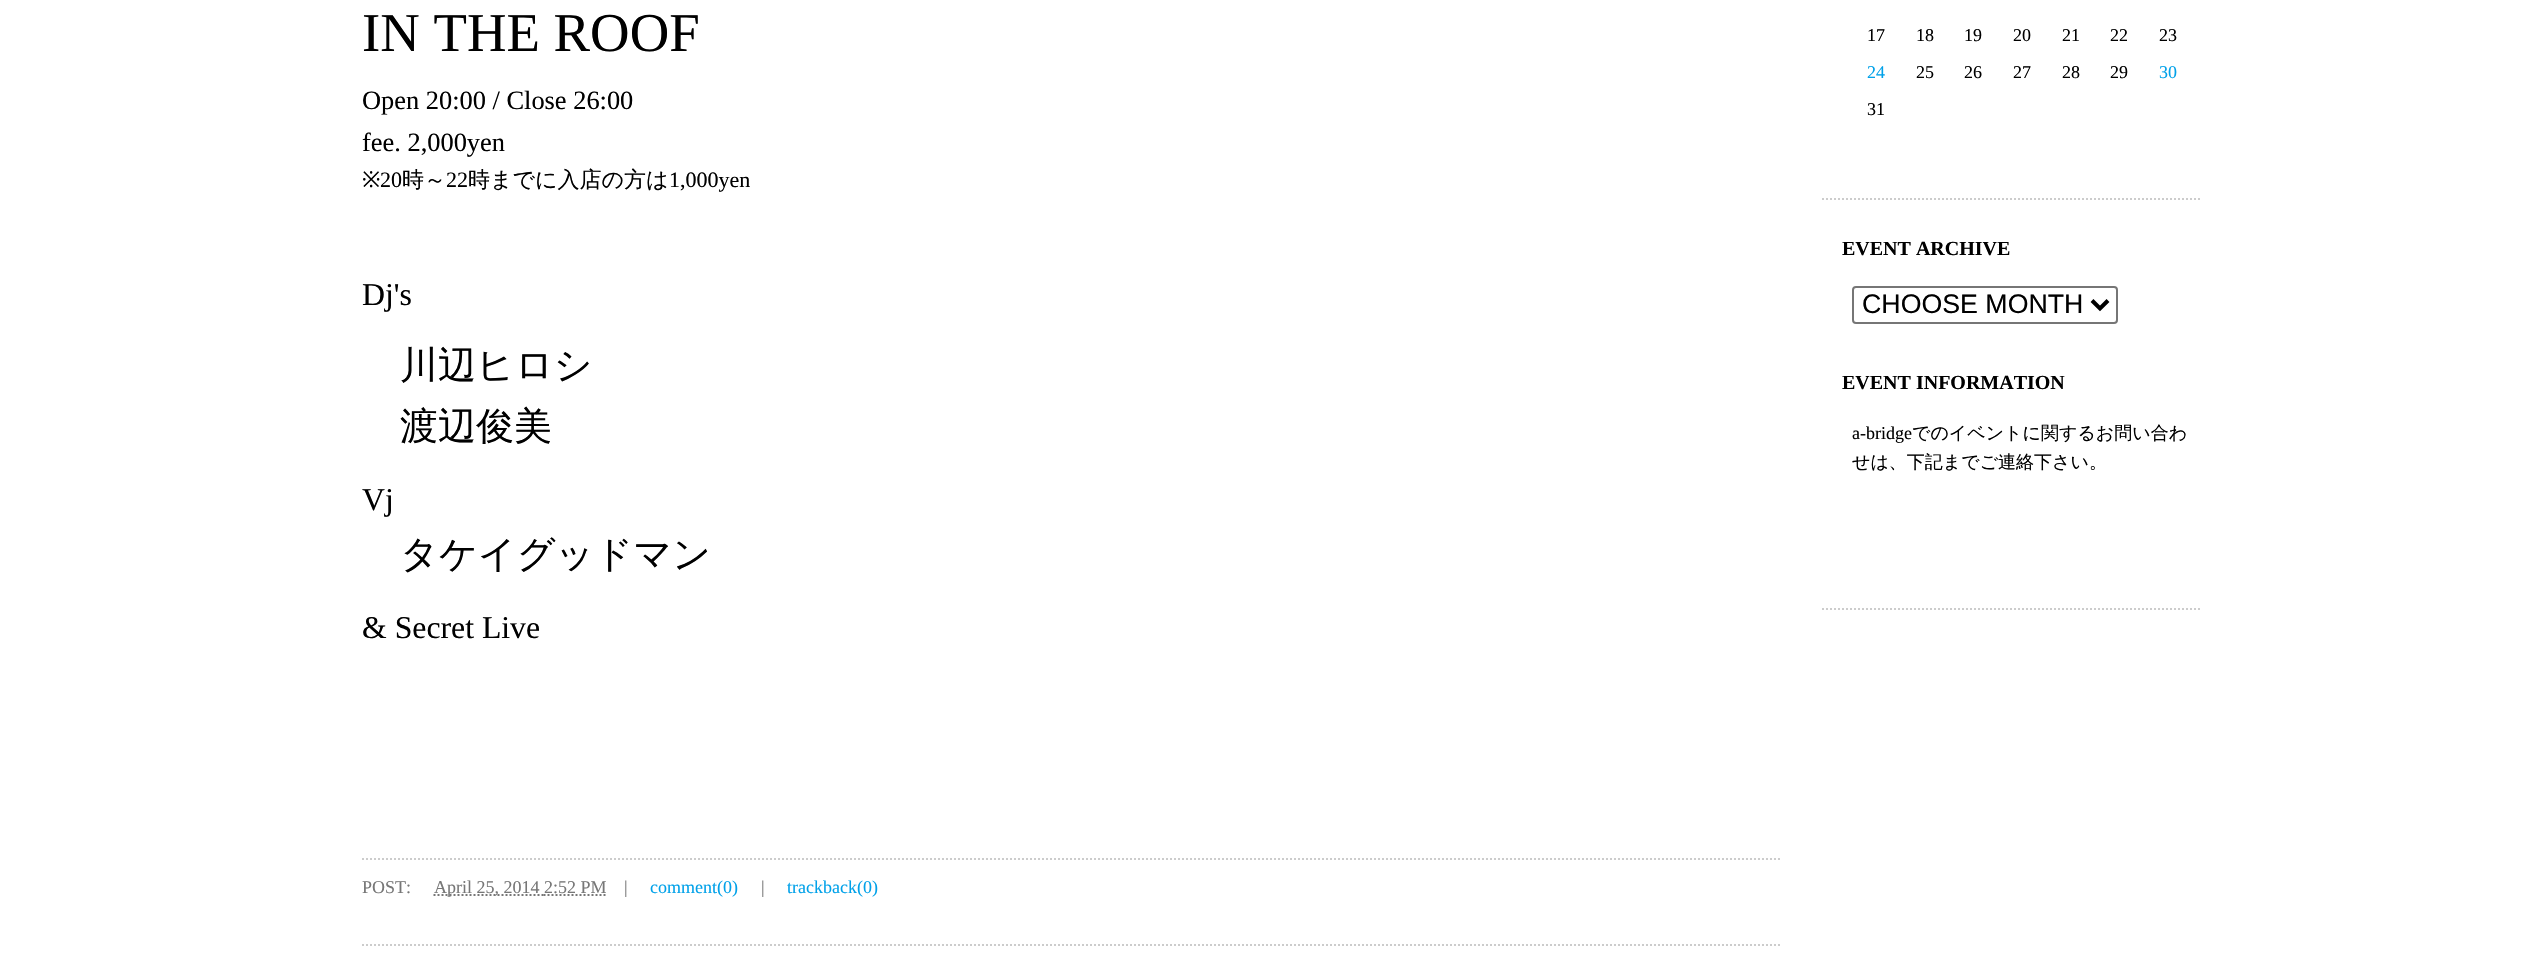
static SkFont makeFont(const char* family, int weight, float size, bool italic = false) {
  SkFontStyle style(weight, SkFontStyle::kNormal_Width,
    italic ? SkFontStyle::kItalic_Slant : SkFontStyle::kUpright_Slant);
  SkFont result(fontMgr->matchFamilyStyle(family, style), size);
  result.setSubpixel(true);
  return result;
}

static void text(SkCanvas* c, const char* s, float x, float y, const SkFont& font, SkColor color) {
  SkPaint ink(SkColor4f::FromColor(color));
  ink.setAntiAlias(true);
  c->drawString(s, x, y, font, ink);
}

void draw(SkCanvas* c) {
  SkPaint paint;
  paint.setAntiAlias(true);
  c->clear(0xffffffff);
  SkFont face1 = makeFont("Liberation Serif", 400, 54.75f);
  text(c, "IN THE ROOF", 362, 51, face1, 0xff000000);
  SkFont face2 = makeFont("Liberation Serif", 400, 26.4f);
  text(c, "Open 20:00 / Close 26:00", 362, 109, face2, 0xff000000);
  text(c, "fee. 2,000yen", 362, 151, face2, 0xff000000);
  SkFont face3 = makeFont("Noto Sans", 400, 22);
  text(c, "※", 362, 187, face3, 0xff000000);
  SkFont face4 = makeFont("Liberation Serif", 400, 22);
  text(c, "20", 380, 187, face4, 0xff000000);
  SkFont face5 = makeFont("WenQuanYi Zen Hei", 500, 22);
  text(c, "時～", 402, 187, face5, 0xff000000);
  text(c, "22", 446, 187, face4, 0xff000000);
  text(c, "時までに入店の方は", 468, 187, face5, 0xff000000);
  text(c, "1,000yen", 669, 187, face4, 0xff000000);
  SkFont face6 = makeFont("Liberation Serif", 400, 31.75f);
  text(c, "Dj's", 362, 305, face6, 0xff000000);
  SkFont face7 = makeFont("WenQuanYi Zen Hei", 500, 38);
  text(c, "川辺ヒロシ", 400, 378, face7, 0xff000000);
  text(c, "渡辺俊美", 400, 439, face7, 0xff000000);
  text(c, "Vj", 362, 510, face6, 0xff000000);
  text(c, "タケイグッドマン", 400, 567, face7, 0xff000000);
  text(c, "& Secret Live", 362, 638, face6, 0xff000000);
  paint.setStyle(SkPaint::kStroke_Style);
  paint.setStrokeWidth(2);
  paint.setColor(0xffcccccc);
  paint.setPathEffect(SkDashPathEffect::Make({{2, 2}}, 0));
  c->drawPath(SkPathBuilder().moveTo(362, 859).lineTo(1782, 859).detach(), paint);
  paint.setPathEffect(nullptr);
  SkFont face8 = makeFont("Liberation Serif", 400, 18);
  text(c, "POST:", 362, 893, face8, 0xff777777);
  paint.setColor(0xff777777);
  paint.setPathEffect(SkDashPathEffect::Make({{2, 2}}, 0));
  c->drawPath(SkPathBuilder().moveTo(433.5f, 895).lineTo(543.5f, 895).detach(), paint);
  paint.setPathEffect(nullptr);
  text(c, "April 25, 2014 2:52 PM", 434, 893, face8, 0xff777777);
  paint.setPathEffect(SkDashPathEffect::Make({{2, 2}}, 0));
  c->drawPath(SkPathBuilder().moveTo(543.5f, 895).lineTo(606, 895).detach(), paint);
  paint.setPathEffect(nullptr);
  text(c, "|", 624, 893, face8, 0xff777777);
  text(c, "comment(0)", 650, 893, face8, 0xff00a1e9);
  text(c, "|", 761, 893, face8, 0xff777777);
  text(c, "trackback(0)", 787, 893, face8, 0xff00a1e9);
  paint.setColor(0xffcccccc);
  paint.setPathEffect(SkDashPathEffect::Make({{2, 2}}, 0));
  c->drawPath(SkPathBuilder().moveTo(362, 945).lineTo(1782, 945).detach(), paint);
  paint.setPathEffect(nullptr);
  text(c, "17", 1867, 41, face8, 0xff000000);
  text(c, "18", 1916, 41, face8, 0xff000000);
  text(c, "19", 1964, 41, face8, 0xff000000);
  text(c, "20", 2013, 41, face8, 0xff000000);
  text(c, "21", 2062, 41, face8, 0xff000000);
  text(c, "22", 2110, 41, face8, 0xff000000);
  text(c, "23", 2159, 41, face8, 0xff000000);
  text(c, "24", 1867, 78, face8, 0xff00a1e9);
  text(c, "25", 1916, 78, face8, 0xff000000);
  text(c, "26", 1964, 78, face8, 0xff000000);
  text(c, "27", 2013, 78, face8, 0xff000000);
  text(c, "28", 2062, 78, face8, 0xff000000);
  text(c, "29", 2110, 78, face8, 0xff000000);
  text(c, "30", 2159, 78, face8, 0xff00a1e9);
  text(c, "31", 1867, 115, face8, 0xff000000);
  paint.setPathEffect(SkDashPathEffect::Make({{2, 2}}, 0));
  c->drawPath(SkPathBuilder().moveTo(1822, 199).lineTo(2202, 199).detach(), paint);
  paint.setPathEffect(nullptr);
  SkFont face9 = makeFont("Liberation Serif", 700, 20);
  text(c, "EVENT ARCHIVE", 1842, 255, face9, 0xff000000);
  paint.setColor(0xff767676);
  c->drawRoundRect(SkRect::MakeLTRB(1853, 287, 2117, 323), 3, 3, paint);
  paint.setStrokeWidth(4);
  paint.setColor(0xff000000);
  c->drawPath(SkPathBuilder().moveTo(2092, 300.5f).lineTo(2100, 308.5f).lineTo(2108, 300.5f).detach(), paint);
  SkFont face10 = makeFont("Liberation Sans", 400, 26.75f);
  text(c, "CHOOSE MONTH", 1862, 313, face10, 0xff000000);
  text(c, "EVENT INFORMATION", 1842, 389, face9, 0xff000000);
  text(c, "a-bridge", 1852, 439, face8, 0xff000000);
  SkFont face11 = makeFont("WenQuanYi Zen Hei", 500, 18);
  text(c, "でのイベントに関するお問い合わ", 1912, 439, face11, 0xff000000);
  text(c, "せは、下記までご連絡下さい。", 1852, 468, face11, 0xff000000);
  paint.setStrokeWidth(2);
  paint.setColor(0xffcccccc);
  paint.setPathEffect(SkDashPathEffect::Make({{2, 2}}, 0));
  c->drawPath(SkPathBuilder().moveTo(1822, 609).lineTo(2202, 609).detach(), paint);
  paint.setPathEffect(nullptr);
}
